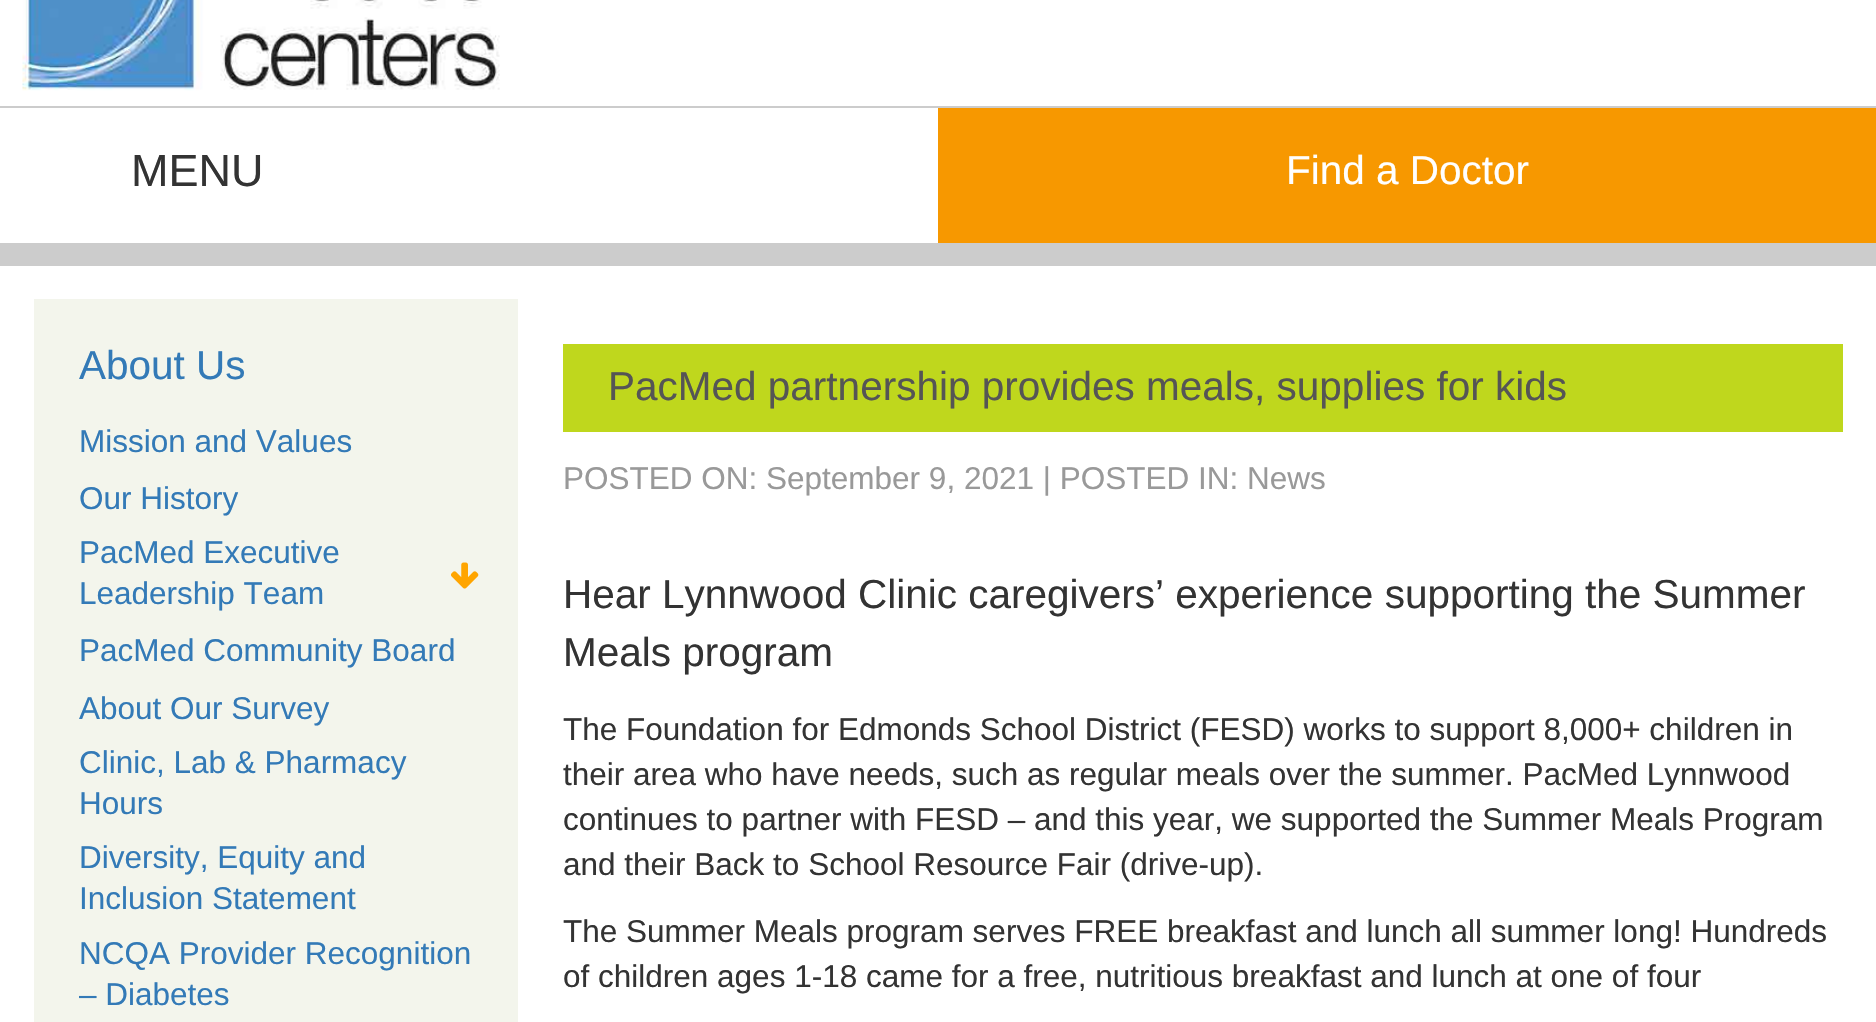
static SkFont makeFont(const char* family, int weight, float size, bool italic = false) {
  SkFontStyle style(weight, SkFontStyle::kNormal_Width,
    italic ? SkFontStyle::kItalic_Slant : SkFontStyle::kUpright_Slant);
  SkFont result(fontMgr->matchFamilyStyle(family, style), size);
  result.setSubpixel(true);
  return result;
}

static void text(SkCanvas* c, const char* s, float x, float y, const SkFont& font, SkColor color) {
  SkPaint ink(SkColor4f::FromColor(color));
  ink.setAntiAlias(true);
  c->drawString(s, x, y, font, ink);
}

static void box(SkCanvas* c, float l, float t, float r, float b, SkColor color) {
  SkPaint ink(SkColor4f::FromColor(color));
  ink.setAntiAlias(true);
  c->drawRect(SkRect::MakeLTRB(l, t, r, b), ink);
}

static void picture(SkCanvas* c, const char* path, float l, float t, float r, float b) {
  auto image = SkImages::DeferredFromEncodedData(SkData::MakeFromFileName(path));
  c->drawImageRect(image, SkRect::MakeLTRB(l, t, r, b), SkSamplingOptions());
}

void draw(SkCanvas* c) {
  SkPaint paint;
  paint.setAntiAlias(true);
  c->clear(0xffffffff);
  box(c, 0, 243, 1876, 266, 0xffcccccc);
  picture(c, "img_01.png", 22, 0, 500, 91);
  box(c, 0, 106, 1876, 108, 0xffcccccc);
  SkFont face1 = makeFont("Liberation Sans", 400, 45);
  text(c, "MENU", 131, 186, face1, 0xff333333);
  box(c, 938, 108, 1876, 243, 0xfff79800);
  SkFont face2 = makeFont("Liberation Sans", 400, 40.5f);
  text(c, "Find a Doctor", 1286, 184, face2, 0xffffffff);
  box(c, 34, 299, 518, 1022, 0xfff3f5ec);
  text(c, "About Us", 79, 379, face2, 0xff337ab7);
  SkFont face3 = makeFont("Liberation Sans", 400, 31.5f);
  text(c, "Mission and Values", 79, 452, face3, 0xff337ab7);
  text(c, "Our History", 79, 509, face3, 0xff337ab7);
  text(c, "PacMed Executive", 79, 563, face3, 0xff337ab7);
  text(c, "Leadership Team", 79, 604, face3, 0xff337ab7);
  picture(c, "img_02.png", 451, 562, 479, 589);
  text(c, "PacMed Community Board", 79, 661, face3, 0xff337ab7);
  text(c, "About Our Survey", 79, 719, face3, 0xff337ab7);
  text(c, "Clinic, Lab & Pharmacy", 79, 773, face3, 0xff337ab7);
  text(c, "Hours", 79, 814, face3, 0xff337ab7);
  text(c, "Diversity, Equity and", 79, 868, face3, 0xff337ab7);
  text(c, "Inclusion Statement", 79, 909, face3, 0xff337ab7);
  text(c, "NCQA Provider Recognition", 79, 964, face3, 0xff337ab7);
  text(c, "– Diabetes", 79, 1005, face3, 0xff337ab7);
  box(c, 563, 344, 1843, 432, 0xffbfd71d);
  text(c, "PacMed partnership provides meals, supplies for kids", 608, 400, face2, 0xff555555);
  text(c, "POSTED ON: September 9, 2021 | POSTED IN: News", 563, 489, face3, 0xff999999);
  text(c, "Hear Lynnwood Clinic caregivers’ experience supporting the Summer", 563, 608, face2, 0xff333333);
  text(c, "Meals program", 563, 666, face2, 0xff333333);
  text(c, "The Foundation for Edmonds School District (FESD) works to support 8,000+ children in", 563, 740, face3, 0xff333333);
  text(c, "their area who have needs, such as regular meals over the summer. PacMed Lynnwood", 563, 785, face3, 0xff333333);
  text(c, "continues to partner with FESD – and this year, we supported the Summer Meals Program", 563, 830, face3, 0xff333333);
  text(c, "and their Back to School Resource Fair (drive-up).", 563, 875, face3, 0xff333333);
  text(c, "The Summer Meals program serves FREE breakfast and lunch all summer long! Hundreds", 563, 942, face3, 0xff333333);
  text(c, "of children ages 1-18 came for a free, nutritious breakfast and lunch at one of four", 563, 987, face3, 0xff333333);
}
